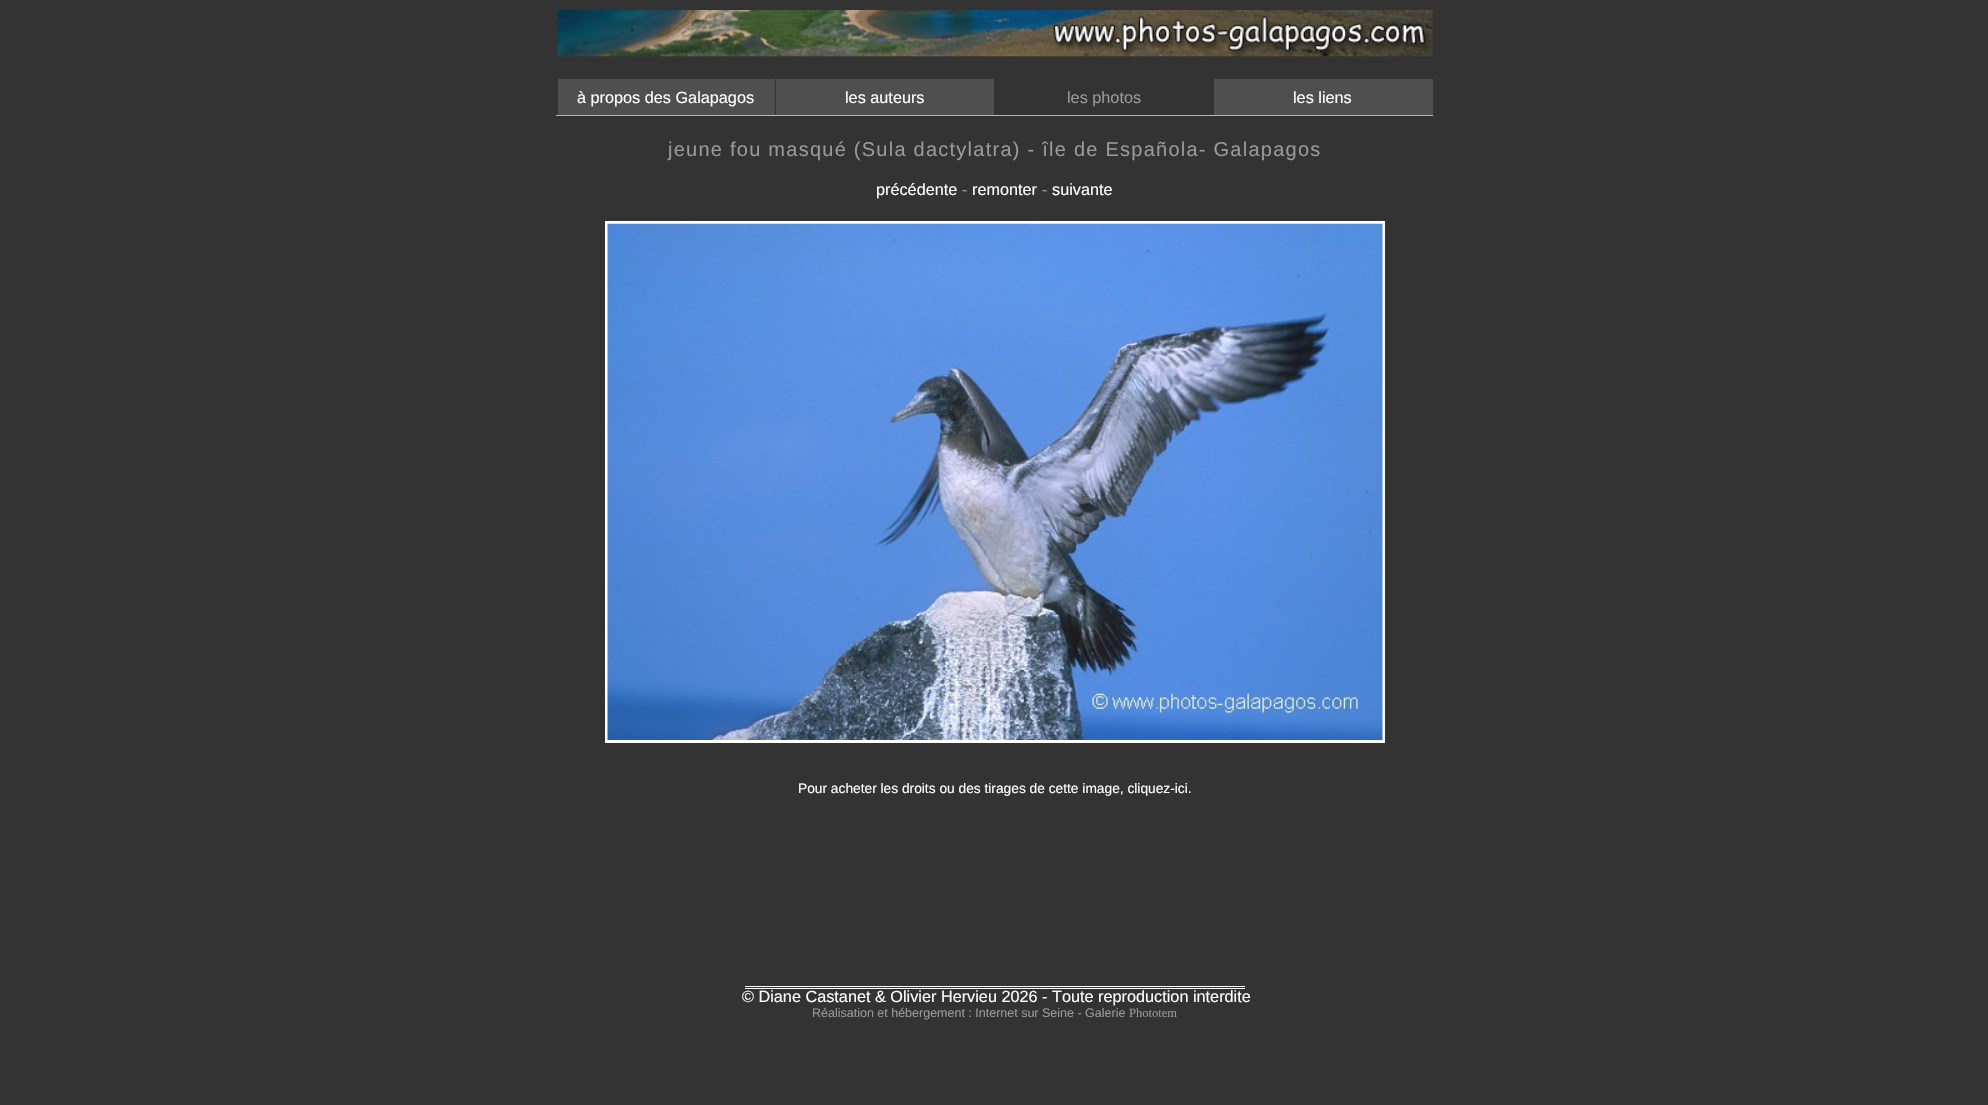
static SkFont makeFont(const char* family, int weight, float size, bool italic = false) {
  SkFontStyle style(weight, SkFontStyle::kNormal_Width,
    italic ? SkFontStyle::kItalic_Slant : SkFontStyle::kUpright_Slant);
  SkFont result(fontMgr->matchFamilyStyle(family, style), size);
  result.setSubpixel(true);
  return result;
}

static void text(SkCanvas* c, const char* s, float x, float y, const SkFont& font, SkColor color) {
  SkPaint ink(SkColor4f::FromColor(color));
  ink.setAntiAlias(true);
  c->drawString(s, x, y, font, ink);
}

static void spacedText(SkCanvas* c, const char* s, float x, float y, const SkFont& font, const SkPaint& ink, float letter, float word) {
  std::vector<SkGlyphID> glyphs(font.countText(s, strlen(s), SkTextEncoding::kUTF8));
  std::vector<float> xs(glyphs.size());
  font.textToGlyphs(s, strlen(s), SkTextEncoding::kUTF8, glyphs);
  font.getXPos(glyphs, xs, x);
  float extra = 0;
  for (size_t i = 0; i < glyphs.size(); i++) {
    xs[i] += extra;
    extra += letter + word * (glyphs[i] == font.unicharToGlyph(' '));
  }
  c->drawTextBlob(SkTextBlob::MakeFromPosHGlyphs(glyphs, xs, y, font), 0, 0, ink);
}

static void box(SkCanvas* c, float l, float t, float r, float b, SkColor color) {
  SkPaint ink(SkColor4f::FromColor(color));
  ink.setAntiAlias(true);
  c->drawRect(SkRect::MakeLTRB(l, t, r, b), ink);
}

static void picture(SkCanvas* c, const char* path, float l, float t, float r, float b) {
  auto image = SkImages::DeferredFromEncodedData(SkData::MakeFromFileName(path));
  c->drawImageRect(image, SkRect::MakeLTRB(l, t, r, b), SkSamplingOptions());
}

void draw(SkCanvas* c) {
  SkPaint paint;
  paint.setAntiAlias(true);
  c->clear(0xff333333);
  picture(c, "img_01.png", 557, 10, 1433, 57);
  box(c, 558, 79, 1433, 115, 0xff4f4f4f);
  box(c, 1213, 115, 1433, 116, 0xffffb400);
  box(c, 1213, 79, 1214, 116, 0xff333333);
  box(c, 994, 115, 1214, 116, 0xffffb400);
  box(c, 994, 79, 995, 116, 0xff333333);
  box(c, 775, 115, 995, 116, 0xffffb400);
  box(c, 775, 79, 776, 116, 0xff333333);
  box(c, 556, 115, 776, 116, 0xffffb400);
  SkFont face1 = makeFont("Liberation Sans", 400, 16.25f);
  text(c, "à propos des Galapagos", 577, 103, face1, 0xffffffff);
  text(c, "les auteurs", 845, 103, face1, 0xffffffff);
  box(c, 995, 79, 1213, 115, 0xff333333);
  text(c, "les photos", 1067, 103, face1, 0xff999999);
  text(c, "les liens", 1293, 103, face1, 0xffffffff);
  SkFont face2 = makeFont("Liberation Sans", 400, 20);
  paint.setColor(0xff999999);
  spacedText(c, "jeune fou masqué (Sula dactylatra) - île de Española- Galapagos", 668, 156, face2, paint, 1.25f, 0);
  text(c, "précédente", 876, 195, face1, 0xffffffff);
  text(c, "-", 962, 195, face1, 0xff999999);
  text(c, "remonter", 972, 195, face1, 0xffffffff);
  text(c, "-", 1042, 195, face1, 0xff999999);
  text(c, "suivante", 1052, 195, face1, 0xffffffff);
  paint.setStyle(SkPaint::kStroke_Style);
  paint.setStrokeWidth(3);
  paint.setColor(0xffffffff);
  c->drawRect(SkRect::MakeLTRB(606.5f, 222.5f, 1383.5f, 741.5f), paint);
  picture(c, "img_02.png", 607, 223, 1383, 740);
  SkFont face3 = makeFont("Liberation Sans", 400, 13.75f);
  text(c, "Pour acheter les droits ou des tirages de cette image, cliquez-ici.", 798, 793, face3, 0xffffffff);
  box(c, 745, 988, 1245, 989, 0xffffffff);
  box(c, 745, 986, 1245, 987, 0xffffffff);
  text(c, "© Diane Castanet & Olivier Hervieu 2026 - Toute reproduction interdite", 742, 1002, face1, 0xffffffff);
  SkFont face4 = makeFont("Liberation Sans", 400, 12.5f);
  text(c, "Réalisation et hébergement : Internet sur Seine - Galerie", 812, 1017, face4, 0xff999999);
  SkFont face5 = makeFont("Liberation Serif", 400, 12.5f);
  text(c, "Phototem", 1129, 1017, face5, 0xff999999);
}
